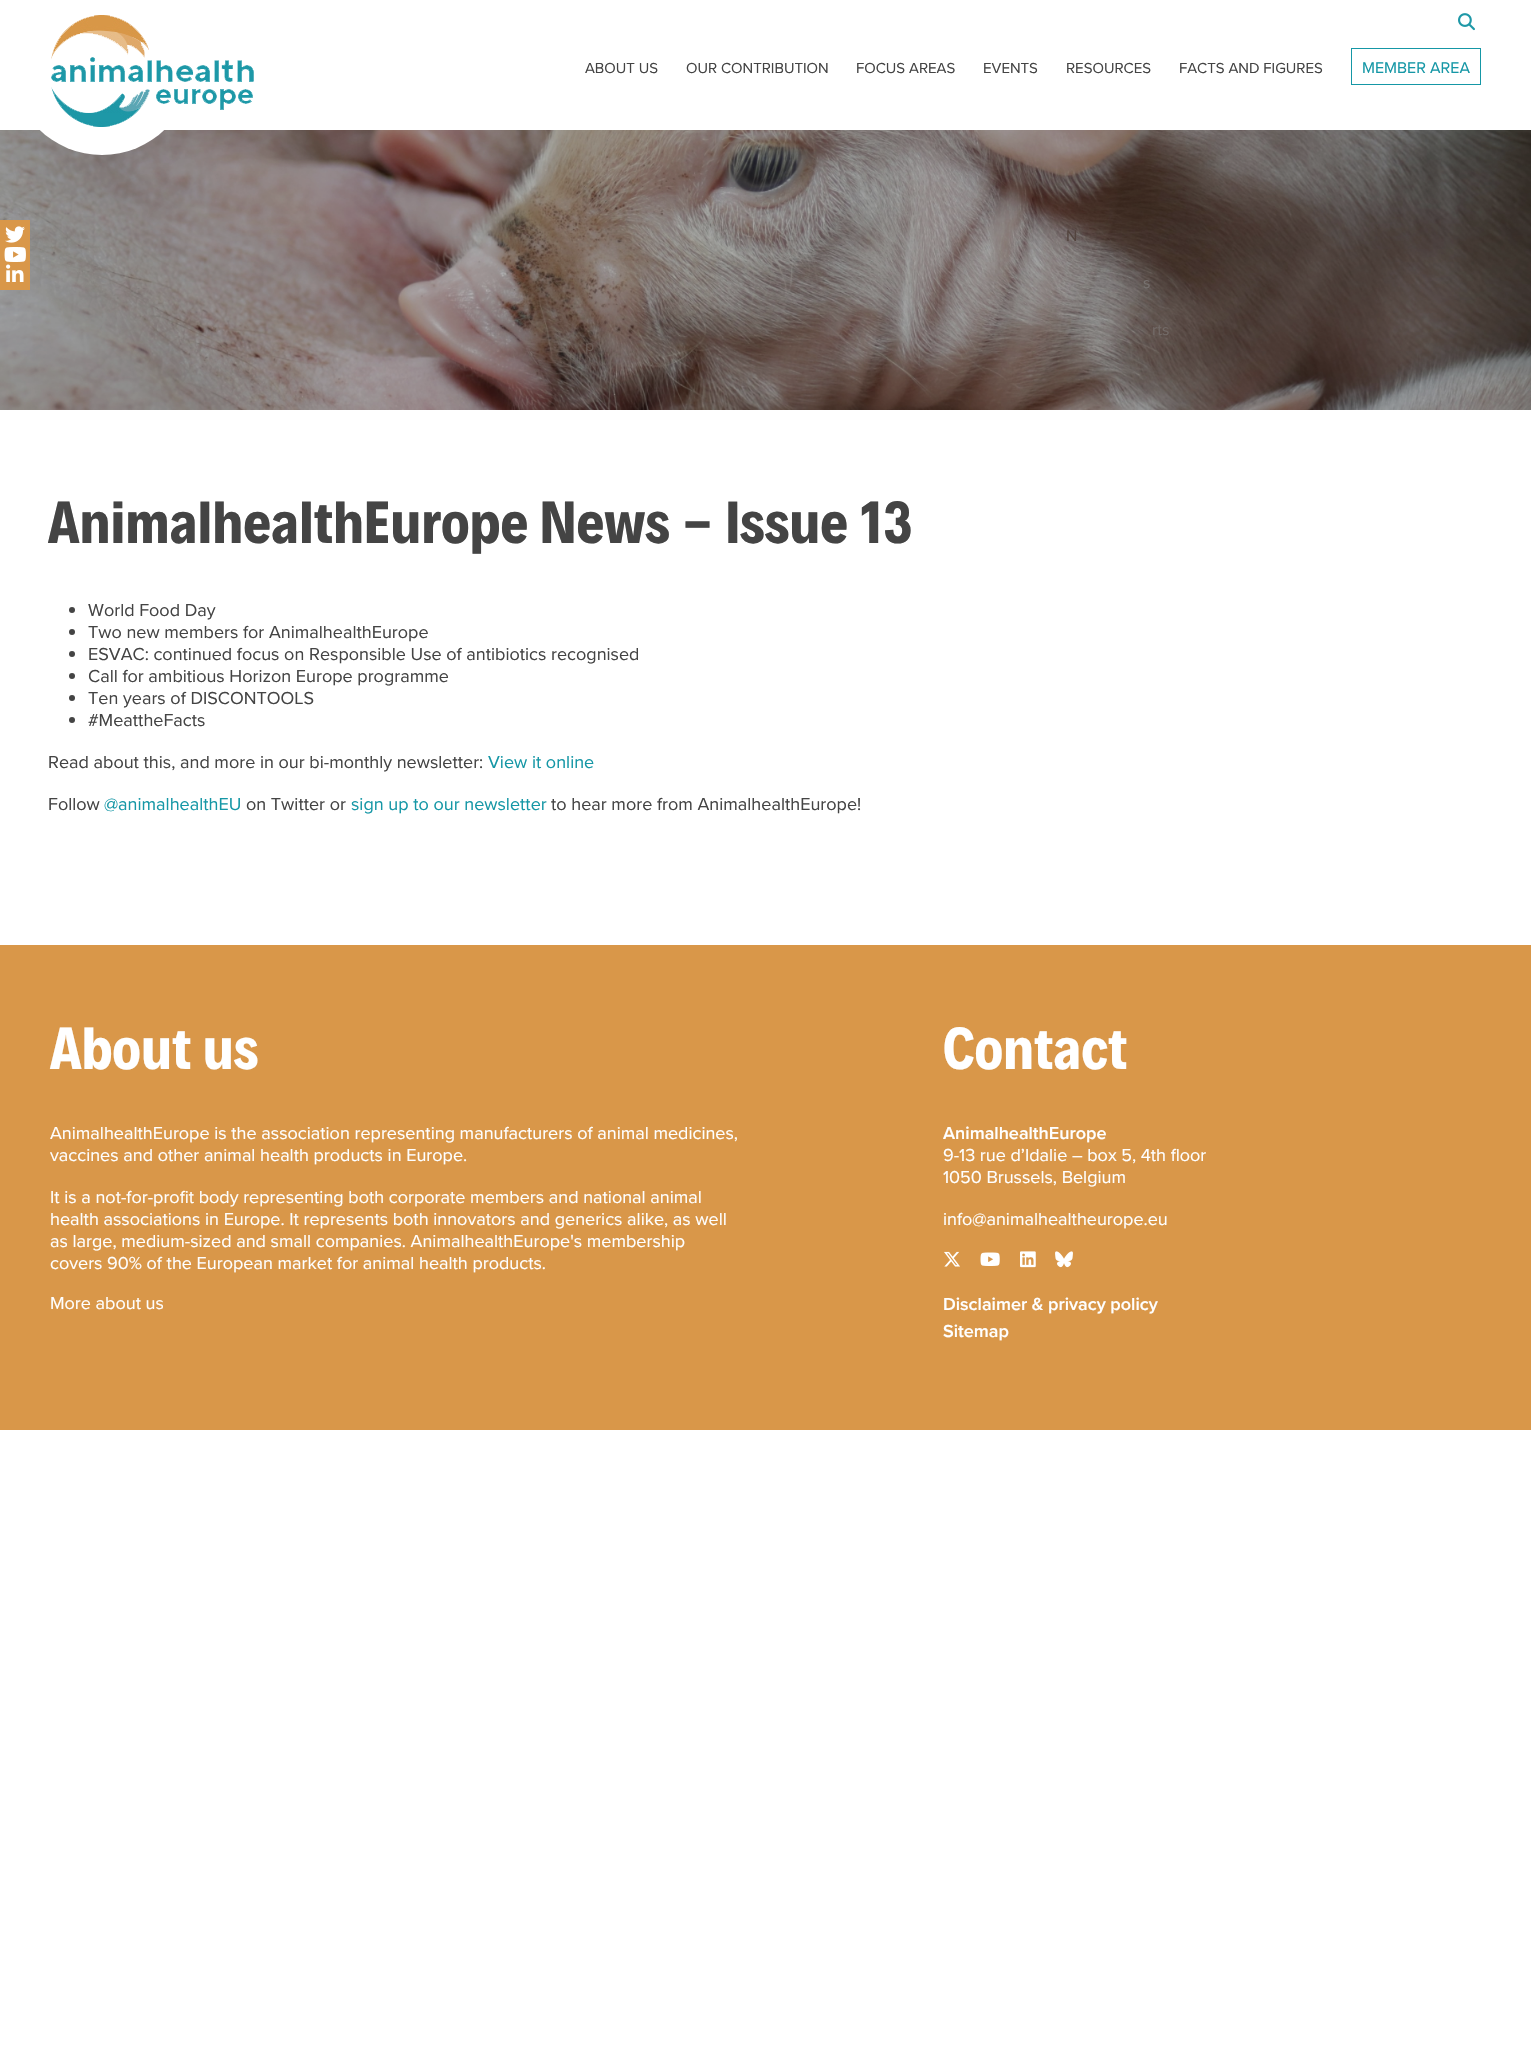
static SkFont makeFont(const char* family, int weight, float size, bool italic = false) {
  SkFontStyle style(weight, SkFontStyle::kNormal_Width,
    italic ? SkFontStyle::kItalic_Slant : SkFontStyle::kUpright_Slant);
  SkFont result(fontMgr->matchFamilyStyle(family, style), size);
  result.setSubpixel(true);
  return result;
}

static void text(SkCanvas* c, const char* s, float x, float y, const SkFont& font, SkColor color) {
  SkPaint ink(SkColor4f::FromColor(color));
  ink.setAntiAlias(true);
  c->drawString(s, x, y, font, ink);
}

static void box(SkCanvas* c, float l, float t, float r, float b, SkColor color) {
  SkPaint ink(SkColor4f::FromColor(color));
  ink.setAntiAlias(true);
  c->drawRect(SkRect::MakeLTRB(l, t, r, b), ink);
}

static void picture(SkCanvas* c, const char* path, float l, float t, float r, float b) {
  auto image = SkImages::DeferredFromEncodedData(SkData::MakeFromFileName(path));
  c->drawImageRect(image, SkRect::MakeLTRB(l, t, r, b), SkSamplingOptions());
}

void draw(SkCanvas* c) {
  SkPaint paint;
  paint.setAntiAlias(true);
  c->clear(0xffffffff);
  picture(c, "img_03.png", 0, 130, 1531, 410);
  paint.setColor(0xffffffff);
  c->drawCircle(102, 65, 90, paint);
  picture(c, "img_01.png", 51, 15, 254, 127);
  picture(c, "img_02.png", 1458, 13, 1475, 31);
  SkFont face1 = makeFont("Proxima Nova", 400, 15);
  text(c, "ABOUT US", 585, 73, face1, 0xff444444);
  SkFont face2 = makeFont("Proxima Nova", 400, 16);
  text(c, "p", 585, 351, face2, 0xff695b55);
  text(c, "OUR CONTRIBUTION", 686, 73, face1, 0xff444444);
  text(c, "FOCUS AREAS", 856, 73, face1, 0xff444444);
  text(c, "EVENTS", 983, 73, face1, 0xff444444);
  text(c, "RESOURCES", 1066, 73, face1, 0xff444444);
  text(c, "N", 1066, 241, face2, 0xff53443e);
  text(c, "s", 1143, 288, face2, 0xff777270);
  text(c, "rts", 1152, 335, face2, 0xff726a67);
  text(c, "FACTS AND FIGURES", 1179, 73, face1, 0xff444444);
  paint.setStyle(SkPaint::kStroke_Style);
  paint.setStrokeWidth(1);
  paint.setColor(0xff1597a6);
  c->drawRect(SkRect::MakeLTRB(1351.5f, 48.5f, 1480.5f, 84.5f), paint);
  text(c, "MEMBER AREA", 1362, 73, face2, 0xff1597a6);
  box(c, 0, 220, 30, 290, 0xffd99749);
  picture(c, "img_04.png", 5, 226, 25, 243);
  picture(c, "img_05.png", 4, 247, 26, 262);
  picture(c, "img_06.png", 6, 264, 24, 282);
  SkFont face3 = makeFont("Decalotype", 700, 60);
  text(c, "AnimalhealthEurope News - Issue 13", 48, 543, face3, 0xff444444);
  paint.setStyle(SkPaint::kFill_Style);
  paint.setColor(0xff444444);
  c->drawCircle(72, 610, 3, paint);
  SkFont face4 = makeFont("Proxima Nova", 400, 18);
  text(c, "World Food Day", 88, 616, face4, 0xff444444);
  c->drawCircle(72, 632, 3, paint);
  text(c, "Two new members for AnimalhealthEurope", 88, 638, face4, 0xff444444);
  c->drawCircle(72, 654, 3, paint);
  text(c, "ESVAC: continued focus on Responsible Use of antibiotics recognised", 88, 660, face4, 0xff444444);
  c->drawCircle(72, 676, 3, paint);
  text(c, "Call for ambitious Horizon Europe programme", 88, 682, face4, 0xff444444);
  c->drawCircle(72, 698, 3, paint);
  text(c, "Ten years of DISCONTOOLS", 88, 704, face4, 0xff444444);
  c->drawCircle(72, 720, 3, paint);
  text(c, "#MeattheFacts", 88, 726, face4, 0xff444444);
  text(c, "Read about this, and more in our bi-monthly newsletter:", 48, 768, face4, 0xff444444);
  text(c, "View it online", 488, 768, face4, 0xff1597a6);
  text(c, "Follow", 48, 810, face4, 0xff444444);
  text(c, "@animalhealthEU", 104, 810, face4, 0xff1597a6);
  text(c, "on Twitter or", 246, 810, face4, 0xff444444);
  text(c, "sign up to our newsletter", 351, 810, face4, 0xff1597a6);
  text(c, "to hear more from AnimalhealthEurope!", 551, 810, face4, 0xff444444);
  box(c, 0, 945, 1531, 1430, 0xffd99749);
  text(c, "About us", 50, 1069, face3, 0xffffffff);
  text(c, "AnimalhealthEurope is the association representing manufacturers of animal medicines,", 50, 1139, face4, 0xffffffff);
  text(c, "vaccines and other animal health products in Europe.", 50, 1161, face4, 0xffffffff);
  text(c, "It is a not-for-profit body representing both corporate members and national animal", 50, 1203, face4, 0xffffffff);
  text(c, "health associations in Europe. It represents both innovators and generics alike, as well", 50, 1225, face4, 0xffffffff);
  text(c, "as large, medium-sized and small companies. AnimalhealthEurope's membership", 50, 1247, face4, 0xffffffff);
  text(c, "covers 90% of the European market for animal health products.", 50, 1269, face4, 0xffffffff);
  text(c, "More about us", 50, 1309, face4, 0xffffffff);
  text(c, "Contact", 943, 1069, face3, 0xffffffff);
  SkFont face5 = makeFont("Proxima Nova", 600, 18);
  text(c, "AnimalhealthEurope", 943, 1139, face5, 0xffffffff);
  text(c, "9-13 rue d’Idalie – box 5, 4th floor", 943, 1161, face4, 0xffffffff);
  text(c, "1050 Brussels, Belgium", 943, 1183, face4, 0xffffffff);
  text(c, "info@animalhealtheurope.eu", 943, 1225, face4, 0xffffffff);
  picture(c, "img_07.png", 944, 1251, 960, 1267);
  picture(c, "img_08.png", 980, 1252, 1000, 1266);
  picture(c, "img_09.png", 1020, 1251, 1036, 1268);
  picture(c, "img_10.png", 1055, 1251, 1073, 1268);
  text(c, "Disclaimer & privacy policy", 943, 1310, face5, 0xffffffff);
  text(c, "Sitemap", 943, 1337, face5, 0xffffffff);
}
